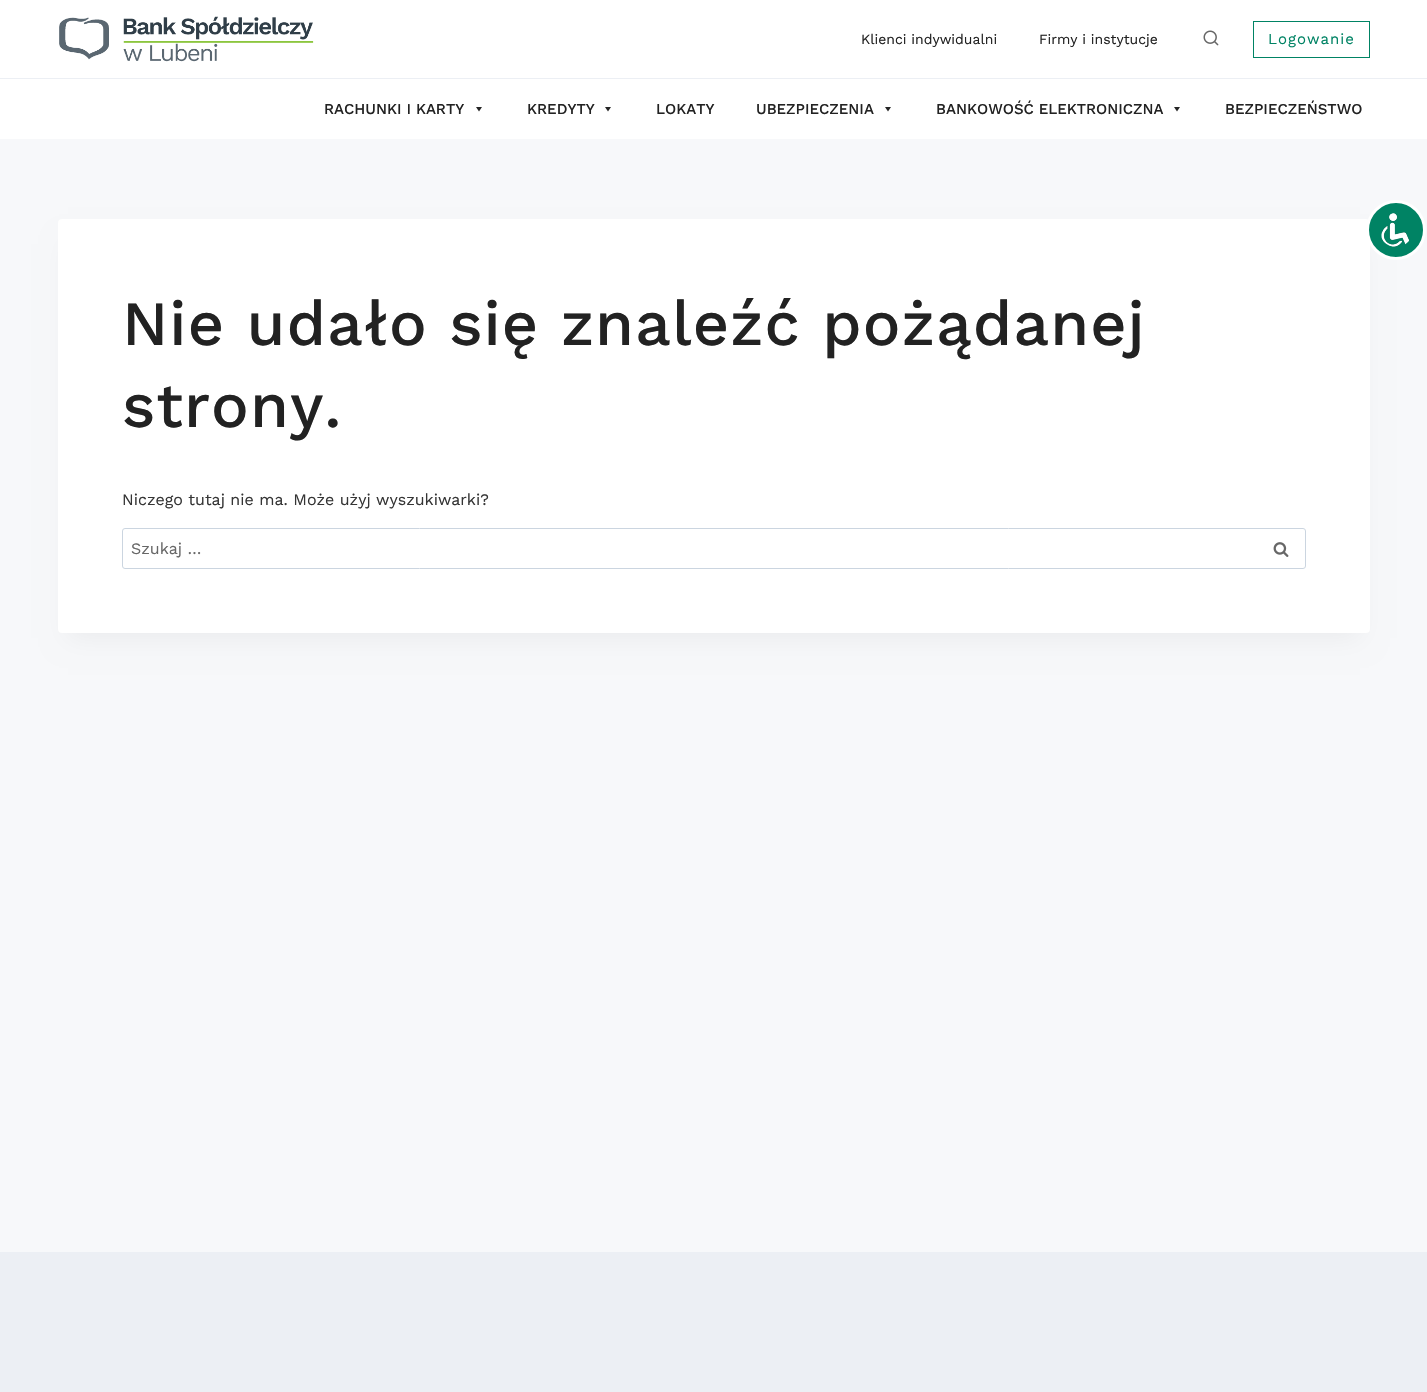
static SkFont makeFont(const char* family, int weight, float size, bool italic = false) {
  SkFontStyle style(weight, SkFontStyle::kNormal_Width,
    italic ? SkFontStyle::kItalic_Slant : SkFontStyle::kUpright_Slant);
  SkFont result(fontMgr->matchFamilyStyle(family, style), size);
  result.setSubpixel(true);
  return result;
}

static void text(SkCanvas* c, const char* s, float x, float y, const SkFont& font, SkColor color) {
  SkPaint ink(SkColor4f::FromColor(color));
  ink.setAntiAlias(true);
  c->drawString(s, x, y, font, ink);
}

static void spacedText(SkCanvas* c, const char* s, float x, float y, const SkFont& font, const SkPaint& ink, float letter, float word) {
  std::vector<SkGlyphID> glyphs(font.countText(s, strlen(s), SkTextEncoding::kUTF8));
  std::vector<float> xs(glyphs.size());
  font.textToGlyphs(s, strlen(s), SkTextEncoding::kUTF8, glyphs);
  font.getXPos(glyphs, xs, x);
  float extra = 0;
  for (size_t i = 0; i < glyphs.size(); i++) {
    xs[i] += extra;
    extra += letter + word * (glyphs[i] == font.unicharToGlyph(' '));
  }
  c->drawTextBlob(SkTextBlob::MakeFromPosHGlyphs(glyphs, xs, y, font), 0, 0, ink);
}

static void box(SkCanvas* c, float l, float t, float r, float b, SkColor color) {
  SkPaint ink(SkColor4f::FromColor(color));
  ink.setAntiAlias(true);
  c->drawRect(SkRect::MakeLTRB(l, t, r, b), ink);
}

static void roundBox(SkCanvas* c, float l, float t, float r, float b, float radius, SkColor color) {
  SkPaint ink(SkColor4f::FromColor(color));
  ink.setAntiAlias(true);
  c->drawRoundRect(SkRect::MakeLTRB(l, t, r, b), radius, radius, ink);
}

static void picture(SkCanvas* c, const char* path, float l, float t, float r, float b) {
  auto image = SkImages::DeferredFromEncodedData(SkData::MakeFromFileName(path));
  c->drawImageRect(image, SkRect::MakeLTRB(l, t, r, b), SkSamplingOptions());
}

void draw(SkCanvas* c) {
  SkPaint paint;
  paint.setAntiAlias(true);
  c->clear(0xfff7f8fa);
  box(c, 0, 0, 1427, 139, 0xffffffff);
  picture(c, "img_01.png", 59, 16, 314, 62);
  SkFont face1 = makeFont("Work Sans", 400, 14);
  text(c, "Klienci indywidualni", 861, 44, face1, 0xff222222);
  text(c, "Firmy i instytucje", 1039, 44, face1, 0xff222222);
  picture(c, "img_02.png", 1203, 30, 1219, 46);
  paint.setStyle(SkPaint::kStroke_Style);
  paint.setStrokeWidth(1);
  paint.setColor(0xff008364);
  c->drawRect(SkRect::MakeLTRB(1253.5f, 21.5f, 1369.5f, 57.5f), paint);
  SkFont face2 = makeFont("Work Sans", 400, 15);
  paint.setStyle(SkPaint::kFill_Style);
  spacedText(c, "Logowanie", 1268, 44, face2, paint, 1, 0);
  box(c, 0, 78, 1427, 79, 0xffeceff4);
  SkFont face3 = makeFont("Work Sans", 500, 15);
  text(c, "RACHUNKI I KARTY", 324, 114, face3, 0xff222222);
  paint.setColor(0xff252525);
  c->drawPath(SkPathBuilder().moveTo(482, 107).lineTo(479, 111.5f).lineTo(476, 107).close().detach(), paint);
  text(c, "KREDYTY", 527, 114, face3, 0xff222222);
  c->drawPath(SkPathBuilder().moveTo(611, 107).lineTo(608, 111.5f).lineTo(605, 107).close().detach(), paint);
  text(c, "LOKATY", 656, 114, face3, 0xff222222);
  text(c, "UBEZPIECZENIA", 756, 114, face3, 0xff222222);
  c->drawPath(SkPathBuilder().moveTo(891, 107).lineTo(888, 111.5f).lineTo(885, 107).close().detach(), paint);
  text(c, "BANKOWOŚĆ ELEKTRONICZNA", 936, 114, face3, 0xff222222);
  c->drawPath(SkPathBuilder().moveTo(1180, 107).lineTo(1177, 111.5f).lineTo(1174, 107).close().detach(), paint);
  text(c, "BEZPIECZEŃSTWO", 1225, 114, face3, 0xff222222);
  paint.setColor(0x0d000000);
  paint.setMaskFilter(SkMaskFilter::MakeBlur(kNormal_SkBlurStyle, 12.5f));
  c->drawRect(SkRect::MakeLTRB(68, 244, 1360, 638), paint);
  paint.setMaskFilter(nullptr);
  roundBox(c, 58, 219, 1370, 633, 4, 0xffffffff);
  SkFont face4 = makeFont("Work Sans", 500, 63);
  paint.setColor(0xff222222);
  spacedText(c, "Nie udało się znaleźć pożądanej", 122, 345, face4, paint, 1, 0);
  spacedText(c, "strony.", 122, 427, face4, paint, 1, 0);
  SkFont face5 = makeFont("Work Sans", 400, 16);
  text(c, "Niczego tutaj nie ma. Może użyj wyszukiwarki?", 122, 505, face5, 0xff353535);
  paint.setStyle(SkPaint::kStroke_Style);
  paint.setColor(0xffcbd5e0);
  c->drawRoundRect(SkRect::MakeLTRB(122.5f, 528.5f, 1305.5f, 568.5f), 2.5f, 2.5f, paint);
  text(c, "Szukaj …", 131, 554, face5, 0xff676767);
  picture(c, "img_03.png", 1273, 542, 1289, 557);
  box(c, 0, 1252, 1427, 1392, 0xffeceff4);
  paint.setStyle(SkPaint::kFill_Style);
  paint.setColor(0xff008364);
  c->drawCircle(1396, 230, 28.5f, paint);
  paint.setStyle(SkPaint::kStroke_Style);
  paint.setStrokeWidth(3);
  paint.setColor(0xffffffff);
  c->drawCircle(1396, 230, 28.5f, paint);
  picture(c, "img_04.png", 1381, 213, 1410, 247);
}
